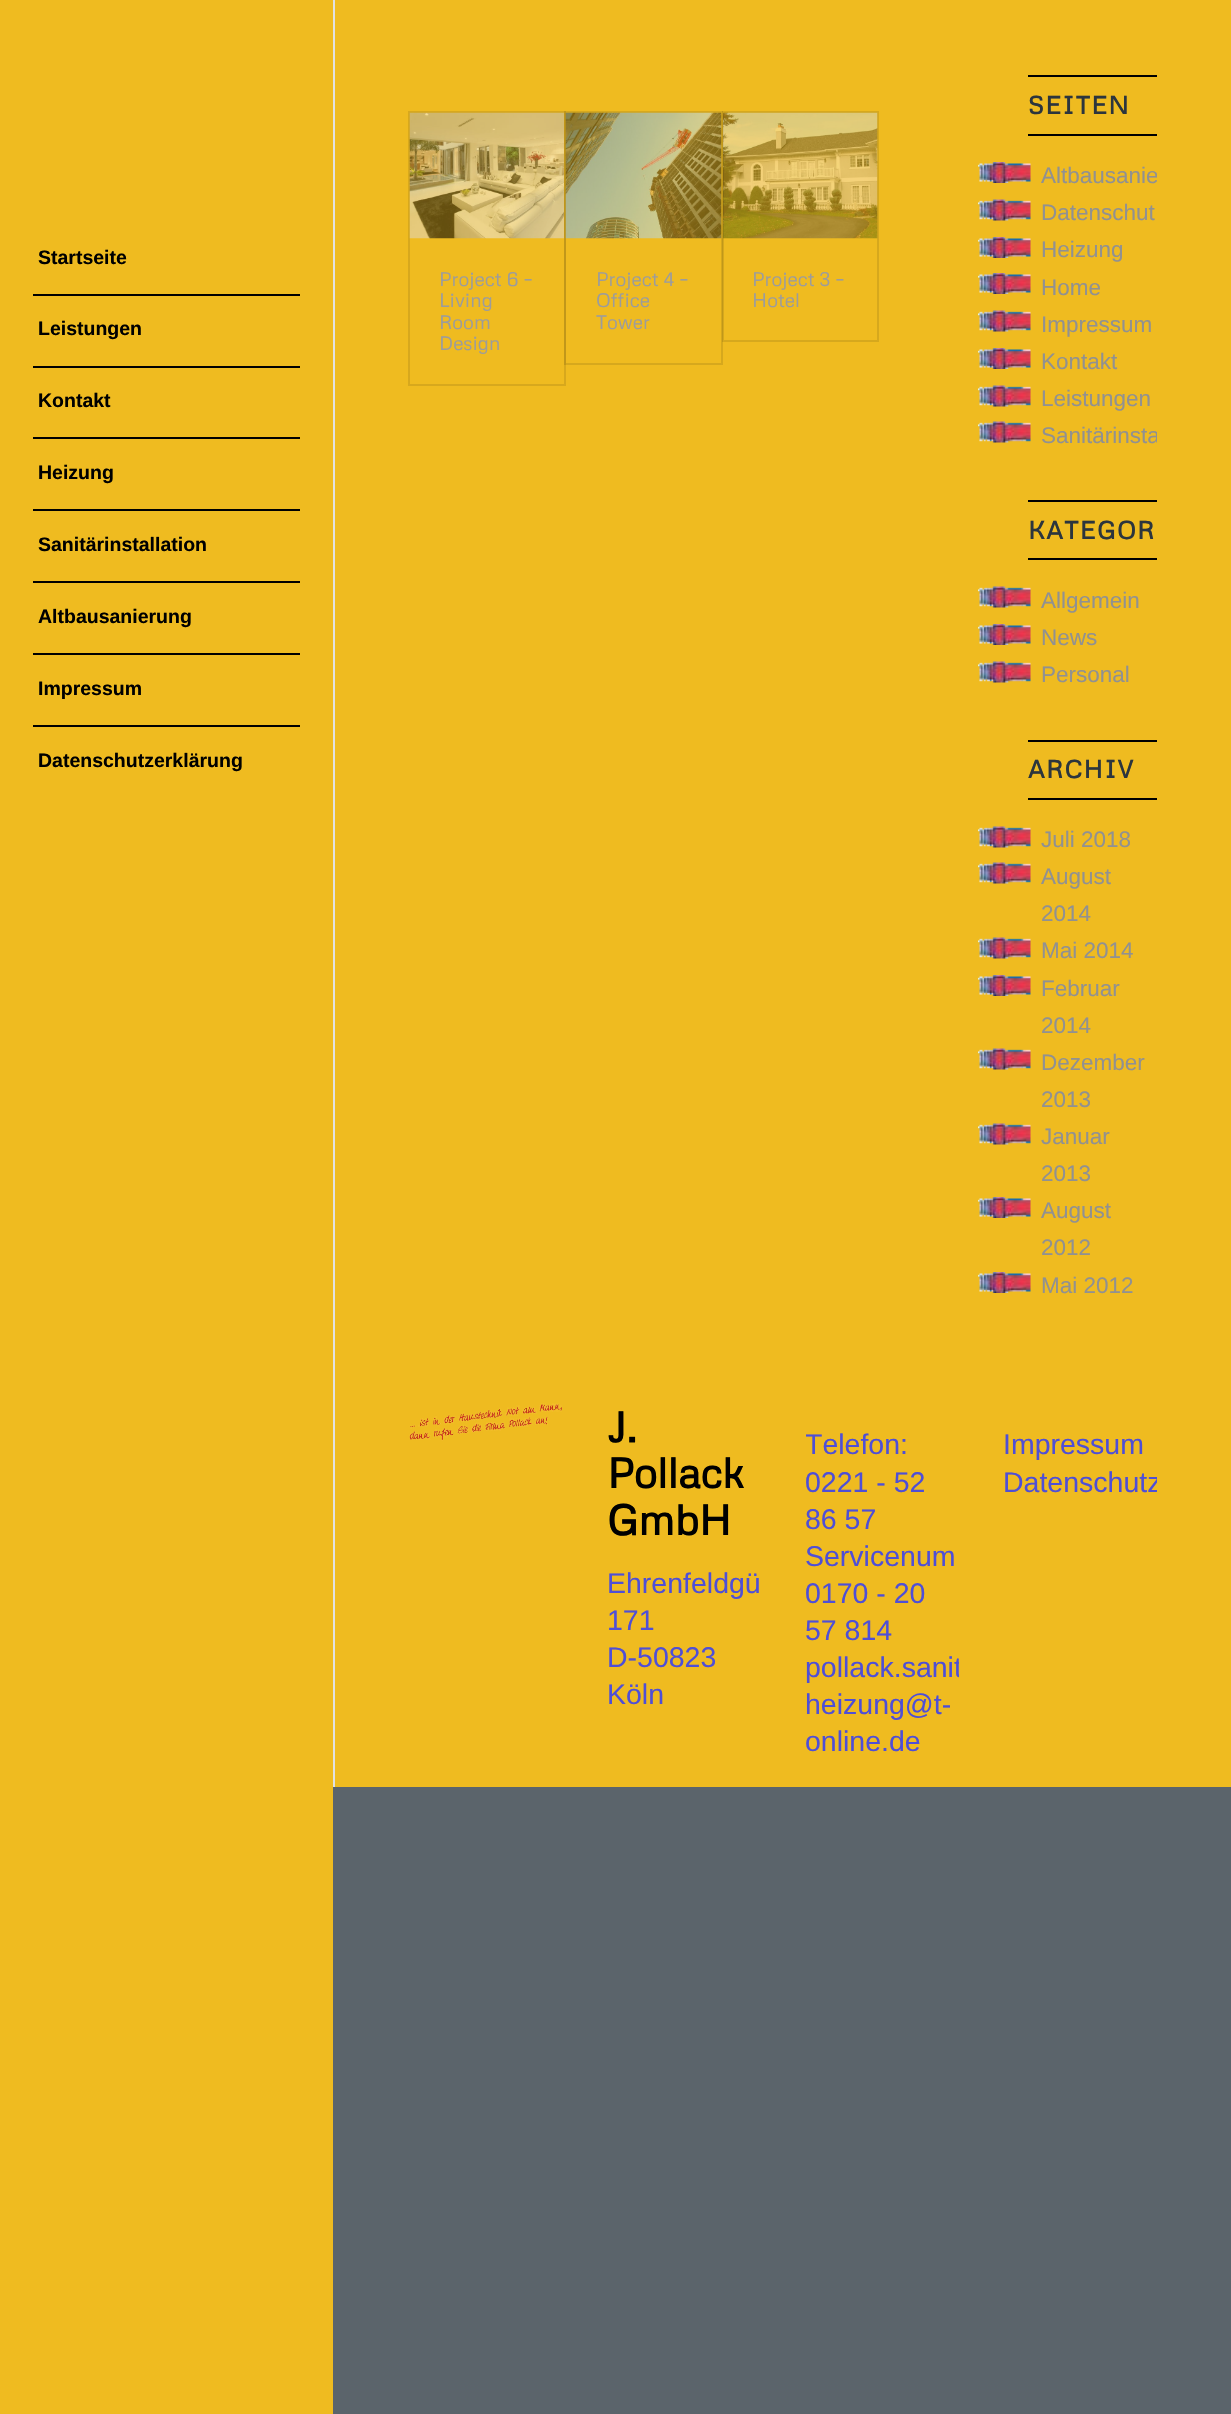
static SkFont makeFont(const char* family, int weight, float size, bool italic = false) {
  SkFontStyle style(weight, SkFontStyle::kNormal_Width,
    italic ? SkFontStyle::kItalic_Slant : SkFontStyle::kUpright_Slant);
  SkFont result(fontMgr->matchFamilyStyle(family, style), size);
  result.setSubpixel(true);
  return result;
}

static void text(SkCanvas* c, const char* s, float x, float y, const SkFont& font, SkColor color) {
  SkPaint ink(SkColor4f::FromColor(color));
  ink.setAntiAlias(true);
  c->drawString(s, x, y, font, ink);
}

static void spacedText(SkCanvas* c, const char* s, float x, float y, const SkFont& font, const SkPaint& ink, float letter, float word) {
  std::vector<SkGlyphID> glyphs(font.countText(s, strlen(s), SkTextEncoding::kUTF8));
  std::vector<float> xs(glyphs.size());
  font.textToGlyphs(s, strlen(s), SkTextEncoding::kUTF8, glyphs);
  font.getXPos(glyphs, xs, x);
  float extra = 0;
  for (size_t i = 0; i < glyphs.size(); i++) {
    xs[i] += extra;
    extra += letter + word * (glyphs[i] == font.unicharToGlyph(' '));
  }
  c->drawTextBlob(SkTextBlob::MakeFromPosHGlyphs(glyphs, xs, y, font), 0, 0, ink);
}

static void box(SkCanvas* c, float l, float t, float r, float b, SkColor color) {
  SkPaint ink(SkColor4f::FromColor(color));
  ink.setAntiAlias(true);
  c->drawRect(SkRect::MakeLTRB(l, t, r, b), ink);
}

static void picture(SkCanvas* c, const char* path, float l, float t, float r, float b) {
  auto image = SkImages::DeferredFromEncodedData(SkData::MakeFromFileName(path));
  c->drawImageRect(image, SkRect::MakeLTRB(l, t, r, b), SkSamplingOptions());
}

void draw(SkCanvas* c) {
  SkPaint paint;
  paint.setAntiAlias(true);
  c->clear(0xff5b646b);
  box(c, 0, 0, 333, 2414, 0xffefbb20);
  box(c, 33, 294, 300, 296, 0xff000000);
  SkFont face1 = makeFont("Liberation Sans", 700, 19.5f);
  text(c, "Startseite", 38, 264, face1, 0xff000000);
  box(c, 33, 366, 300, 368, 0xff000000);
  text(c, "Leistungen", 38, 335, face1, 0xff000000);
  box(c, 33, 437, 300, 439, 0xff000000);
  text(c, "Kontakt", 38, 407, face1, 0xff000000);
  box(c, 33, 509, 300, 511, 0xff000000);
  text(c, "Heizung", 38, 479, face1, 0xff000000);
  box(c, 33, 581, 300, 583, 0xff000000);
  text(c, "Sanitärinstallation", 38, 551, face1, 0xff000000);
  box(c, 33, 653, 300, 655, 0xff000000);
  text(c, "Altbausanierung", 38, 623, face1, 0xff000000);
  box(c, 33, 725, 300, 727, 0xff000000);
  text(c, "Impressum", 38, 695, face1, 0xff000000);
  text(c, "Datenschutzerklärung", 38, 767, face1, 0xff000000);
  box(c, 335, 0, 1231, 1787, 0xffefbb20);
  box(c, 333, 0, 335, 1787, 0xffe1e1e1);
  paint.setStyle(SkPaint::kStroke_Style);
  paint.setStrokeWidth(2);
  paint.setColor(0xffd7a81d);
  c->drawRect(SkRect::MakeLTRB(409, 112, 565, 385), paint);
  picture(c, "img_01.png", 409, 112, 564, 239);
  SkFont face2 = makeFont("Metrophobic", 400, 19.5f);
  text(c, "Project 6 –", 439, 286, face2, 0xff9c9c9c);
  text(c, "Living", 439, 307, face2, 0xff9c9c9c);
  text(c, "Room", 439, 329, face2, 0xff9c9c9c);
  text(c, "Design", 439, 350, face2, 0xff9c9c9c);
  paint.setColor(0x1a000000);
  c->drawRect(SkRect::MakeLTRB(565, 112, 722, 364), paint);
  picture(c, "img_02.png", 565, 112, 722, 239);
  text(c, "Project 4 –", 596, 286, face2, 0xff9c9c9c);
  text(c, "Office", 596, 307, face2, 0xff9c9c9c);
  text(c, "Tower", 596, 329, face2, 0xff9c9c9c);
  c->drawRect(SkRect::MakeLTRB(723, 112, 878, 341), paint);
  picture(c, "img_03.png", 723, 112, 878, 239);
  text(c, "Project 3 –", 752, 286, face2, 0xff9c9c9c);
  text(c, "Hotel", 752, 307, face2, 0xff9c9c9c);
  box(c, 1028, 75, 1157, 77, 0xff000000);
  box(c, 1028, 134, 1157, 136, 0xff000000);
  SkFont face3 = makeFont("Metrophobic", 700, 24.75f);
  paint.setStyle(SkPaint::kFill_Style);
  paint.setColor(0xff2c353d);
  spacedText(c, "SEITEN", 1028, 114, face3, paint, 1.5f, 0);
  picture(c, "img_04.png", 978, 162, 1031, 183);
  c->save();
  c->clipRect(SkRect::MakeLTRB(953, 0, 1157, 1379));
  SkFont face4 = makeFont("Liberation Sans", 400, 22.5f);
  text(c, "Altbausanie", 1041, 183, face4, 0xff919191);
  c->restore();
  picture(c, "img_05.png", 978, 199, 1031, 221);
  text(c, "Datenschut", 1041, 220, face4, 0xff919191);
  picture(c, "img_04.png", 978, 237, 1031, 258);
  text(c, "Heizung", 1041, 257, face4, 0xff919191);
  picture(c, "img_04.png", 978, 273, 1031, 294);
  text(c, "Home", 1041, 295, face4, 0xff919191);
  picture(c, "img_05.png", 978, 310, 1031, 332);
  text(c, "Impressum", 1041, 332, face4, 0xff919191);
  picture(c, "img_04.png", 978, 348, 1031, 369);
  text(c, "Kontakt", 1041, 369, face4, 0xff919191);
  picture(c, "img_05.png", 978, 385, 1031, 407);
  text(c, "Leistungen", 1041, 406, face4, 0xff919191);
  picture(c, "img_05.png", 978, 421, 1031, 443);
  c->save();
  c->clipRect(SkRect::MakeLTRB(953, 0, 1157, 1379));
  text(c, "Sanitärinsta", 1041, 443, face4, 0xff919191);
  c->restore();
  box(c, 1028, 500, 1157, 502, 0xff000000);
  box(c, 1028, 558, 1157, 560, 0xff000000);
  spacedText(c, "KATEGOR", 1028, 539, face3, paint, 1.5f, 0);
  picture(c, "img_05.png", 978, 586, 1031, 608);
  text(c, "Allgemein", 1041, 608, face4, 0xff919191);
  picture(c, "img_04.png", 978, 624, 1031, 645);
  text(c, "News", 1041, 645, face4, 0xff919191);
  picture(c, "img_05.png", 978, 661, 1031, 683);
  text(c, "Personal", 1041, 682, face4, 0xff919191);
  box(c, 1028, 740, 1157, 742, 0xff000000);
  box(c, 1028, 798, 1157, 800, 0xff000000);
  spacedText(c, "ARCHIV", 1028, 778, face3, paint, 1.5f, 0);
  picture(c, "img_05.png", 978, 826, 1031, 848);
  text(c, "Juli 2018", 1041, 847, face4, 0xff919191);
  picture(c, "img_05.png", 978, 862, 1031, 884);
  text(c, "August", 1041, 884, face4, 0xff919191);
  text(c, "2014", 1041, 921, face4, 0xff919191);
  picture(c, "img_05.png", 978, 937, 1031, 959);
  text(c, "Mai 2014", 1041, 958, face4, 0xff919191);
  picture(c, "img_04.png", 978, 975, 1031, 996);
  text(c, "Februar", 1041, 996, face4, 0xff919191);
  text(c, "2014", 1041, 1033, face4, 0xff919191);
  picture(c, "img_05.png", 978, 1048, 1031, 1070);
  text(c, "Dezember", 1041, 1070, face4, 0xff919191);
  text(c, "2013", 1041, 1107, face4, 0xff919191);
  picture(c, "img_05.png", 978, 1123, 1031, 1145);
  text(c, "Januar", 1041, 1144, face4, 0xff919191);
  text(c, "2013", 1041, 1181, face4, 0xff919191);
  picture(c, "img_04.png", 978, 1197, 1031, 1218);
  text(c, "August", 1041, 1218, face4, 0xff919191);
  text(c, "2012", 1041, 1255, face4, 0xff919191);
  picture(c, "img_04.png", 978, 1272, 1031, 1293);
  text(c, "Mai 2012", 1041, 1293, face4, 0xff919191);
  picture(c, "img_06.png", 409, 1403, 562, 1441);
  SkFont face5 = makeFont("Metrophobic", 700, 42);
  text(c, "J.", 607, 1442, face5, 0xff000000);
  text(c, "Pollack", 607, 1488, face5, 0xff000000);
  text(c, "GmbH", 607, 1535, face5, 0xff000000);
  SkFont face6 = makeFont("Liberation Sans", 400, 28.5f);
  text(c, "Ehrenfeldgü", 607, 1593, face6, 0xff4f4fd6);
  text(c, "171", 607, 1630, face6, 0xff4f4fd6);
  text(c, "D-50823", 607, 1667, face6, 0xff4f4fd6);
  text(c, "Köln", 607, 1704, face6, 0xff4f4fd6);
  c->save();
  c->clipRect(SkRect::MakeLTRB(806, 1403, 959, 1787));
  text(c, "Telefon:", 805, 1454, face6, 0xff4f4fd6);
  c->restore();
  text(c, "0221 - 52", 805, 1492, face6, 0xff4f4fd6);
  text(c, "86 57", 805, 1529, face6, 0xff4f4fd6);
  text(c, "Servicenum", 805, 1566, face6, 0xff4f4fd6);
  text(c, "0170 - 20", 805, 1603, face6, 0xff4f4fd6);
  text(c, "57 814", 805, 1640, face6, 0xff4f4fd6);
  c->save();
  c->clipRect(SkRect::MakeLTRB(806, 1403, 959, 1787));
  text(c, "pollack.sanit", 805, 1677, face6, 0xff4f4fd6);
  c->restore();
  text(c, "heizung@t-", 805, 1714, face6, 0xff4f4fd6);
  text(c, "online.de", 805, 1751, face6, 0xff4f4fd6);
  text(c, "Impressum", 1003, 1454, face6, 0xff4f4fd6);
  c->save();
  c->clipRect(SkRect::MakeLTRB(1004, 1403, 1157, 1526));
  text(c, "Datenschutz", 1003, 1492, face6, 0xff4f4fd6);
  c->restore();
}
